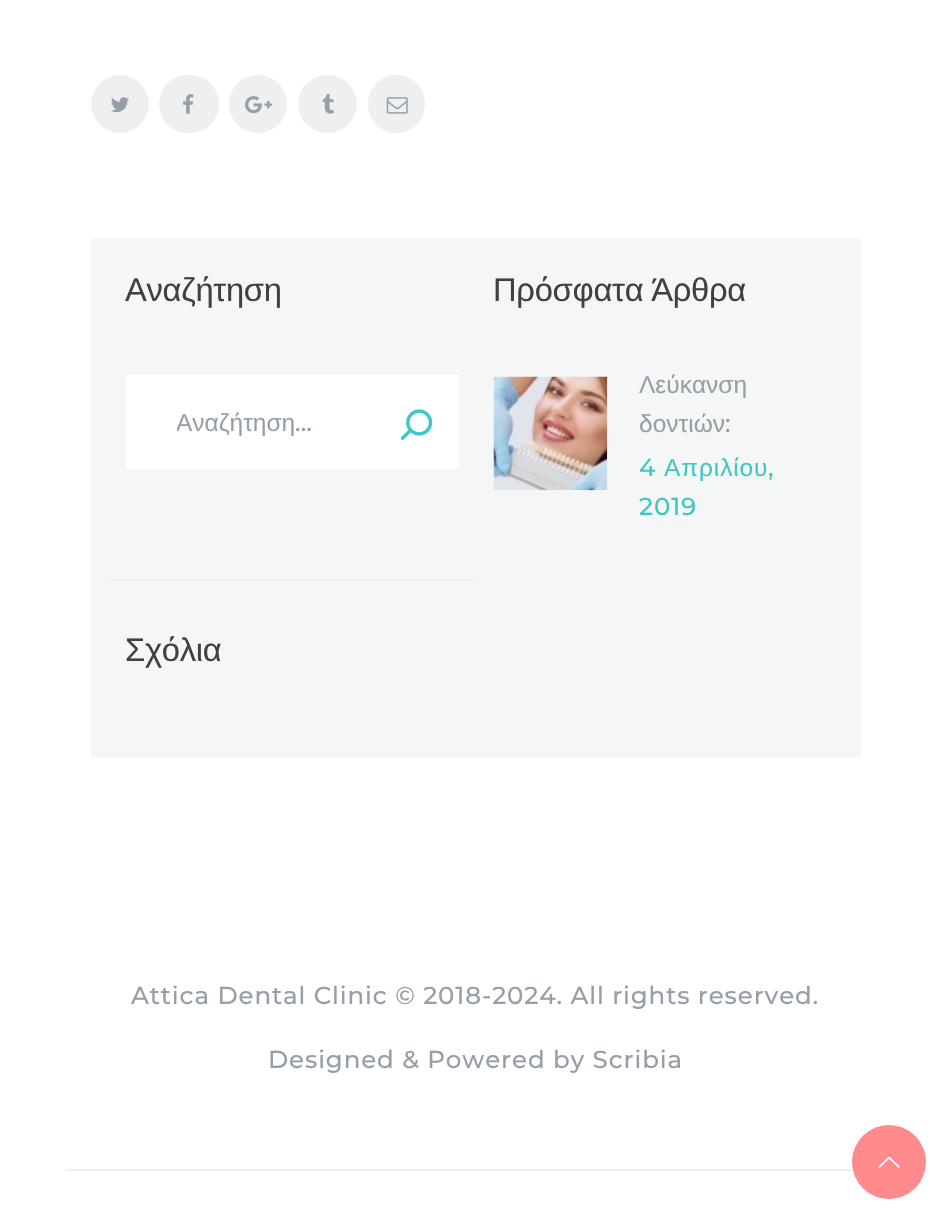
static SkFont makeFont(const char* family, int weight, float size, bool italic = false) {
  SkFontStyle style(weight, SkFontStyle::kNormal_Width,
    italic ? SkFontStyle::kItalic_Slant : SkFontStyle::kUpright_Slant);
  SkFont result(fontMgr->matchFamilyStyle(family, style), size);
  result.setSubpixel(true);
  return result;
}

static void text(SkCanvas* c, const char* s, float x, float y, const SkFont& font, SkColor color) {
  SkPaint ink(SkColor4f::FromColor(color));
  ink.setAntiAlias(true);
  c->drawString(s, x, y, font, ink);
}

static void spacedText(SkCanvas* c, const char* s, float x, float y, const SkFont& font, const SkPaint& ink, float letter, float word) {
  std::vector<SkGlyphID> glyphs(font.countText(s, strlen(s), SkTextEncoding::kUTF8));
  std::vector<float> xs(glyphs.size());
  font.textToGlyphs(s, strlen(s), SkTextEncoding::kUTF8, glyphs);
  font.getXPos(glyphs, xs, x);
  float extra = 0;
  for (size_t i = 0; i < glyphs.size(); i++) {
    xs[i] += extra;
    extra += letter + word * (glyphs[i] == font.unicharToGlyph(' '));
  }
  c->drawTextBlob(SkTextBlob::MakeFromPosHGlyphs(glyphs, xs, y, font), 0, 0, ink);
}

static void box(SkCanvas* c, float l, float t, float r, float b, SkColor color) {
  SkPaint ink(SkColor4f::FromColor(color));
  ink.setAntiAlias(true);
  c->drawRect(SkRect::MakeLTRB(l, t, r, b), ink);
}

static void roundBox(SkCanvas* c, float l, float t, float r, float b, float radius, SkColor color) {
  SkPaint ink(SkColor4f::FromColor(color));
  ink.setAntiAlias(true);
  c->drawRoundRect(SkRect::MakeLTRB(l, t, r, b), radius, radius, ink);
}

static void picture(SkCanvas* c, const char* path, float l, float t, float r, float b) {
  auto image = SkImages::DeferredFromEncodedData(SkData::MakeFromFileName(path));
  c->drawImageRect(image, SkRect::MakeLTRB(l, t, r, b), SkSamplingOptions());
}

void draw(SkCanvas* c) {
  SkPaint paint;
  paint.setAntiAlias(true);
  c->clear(0xffffffff);
  paint.setColor(0xffedeff1);
  c->drawCircle(120, 104, 29, paint);
  picture(c, "img_01.png", 111, 97, 129, 113);
  roundBox(c, 159, 75, 219, 133, 29, 0xffedeff1);
  picture(c, "img_02.png", 183, 94, 194, 114);
  c->drawCircle(258, 104, 29, paint);
  picture(c, "img_03.png", 245, 96, 272, 114);
  roundBox(c, 298, 75, 357, 133, 29, 0xffedeff1);
  picture(c, "img_04.png", 322, 94, 334, 114);
  roundBox(c, 368, 75, 425, 133, 28.5f, 0xffedeff1);
  picture(c, "img_05.png", 386, 97, 408, 114);
  box(c, 91, 238, 861, 758, 0xfff5f7f7);
  SkFont face1 = makeFont("Liberation Sans", 400, 32.75f);
  paint.setColor(0xff404040);
  spacedText(c, "Αναζήτηση", 125, 301, face1, paint, -0.3f, 0);
  box(c, 126, 375, 459, 469, 0xffffffff);
  c->save();
  c->clipRect(SkRect::MakeLTRB(177, 406, 359, 438));
  SkFont face2 = makeFont("Liberation Sans", 400, 24.5f);
  text(c, "Αναζήτηση", 176, 431, face2, 0xff969fa8);
  c->restore();
  SkFont face3 = makeFont("Montserrat", 500, 24.5f);
  text(c, "…", 295, 431, face3, 0xff969fa8);
  picture(c, "img_06.png", 400, 409, 433, 440);
  spacedText(c, "Πρόσφατα Άρθρα", 493, 301, face1, paint, -0.3f, -1);
  picture(c, "img_07.png", 493, 376, 608, 491);
  text(c, "Λεύκανση", 639, 393, face2, 0xff969fa8);
  text(c, "δοντιών", 639, 432, face2, 0xff969fa8);
  text(c, ":", 725, 432, face3, 0xff969fa8);
  paint.setColor(0xff3ec7c5);
  spacedText(c, "4", 639, 476, face3, paint, 0.88f, 0);
  spacedText(c, "Απριλίου", 664, 476, face2, paint, 0.88f, 0);
  spacedText(c, ",", 768, 476, face3, paint, 0.88f, 0);
  spacedText(c, "2019", 639, 515, face3, paint, 0.88f, 0);
  box(c, 109, 579, 476, 581, 0xffedeff1);
  paint.setColor(0xff404040);
  spacedText(c, "Σχόλια", 125, 661, face1, paint, -0.3f, 0);
  paint.setColor(0xff969fa8);
  spacedText(c, "Attica Dental Clinic © 2018-2024. All rights reserved.", 131, 1004, face3, paint, 0.88f, 0);
  spacedText(c, "Designed & Powered by Scribia", 268, 1068, face3, paint, 0.88f, 0);
  box(c, 65, 1169, 854, 1171, 0xffedeff1);
  paint.setColor(0xffff8a8b);
  c->drawCircle(889, 1162, 37, paint);
  picture(c, "img_08.png", 878, 1156, 900, 1168);
}
